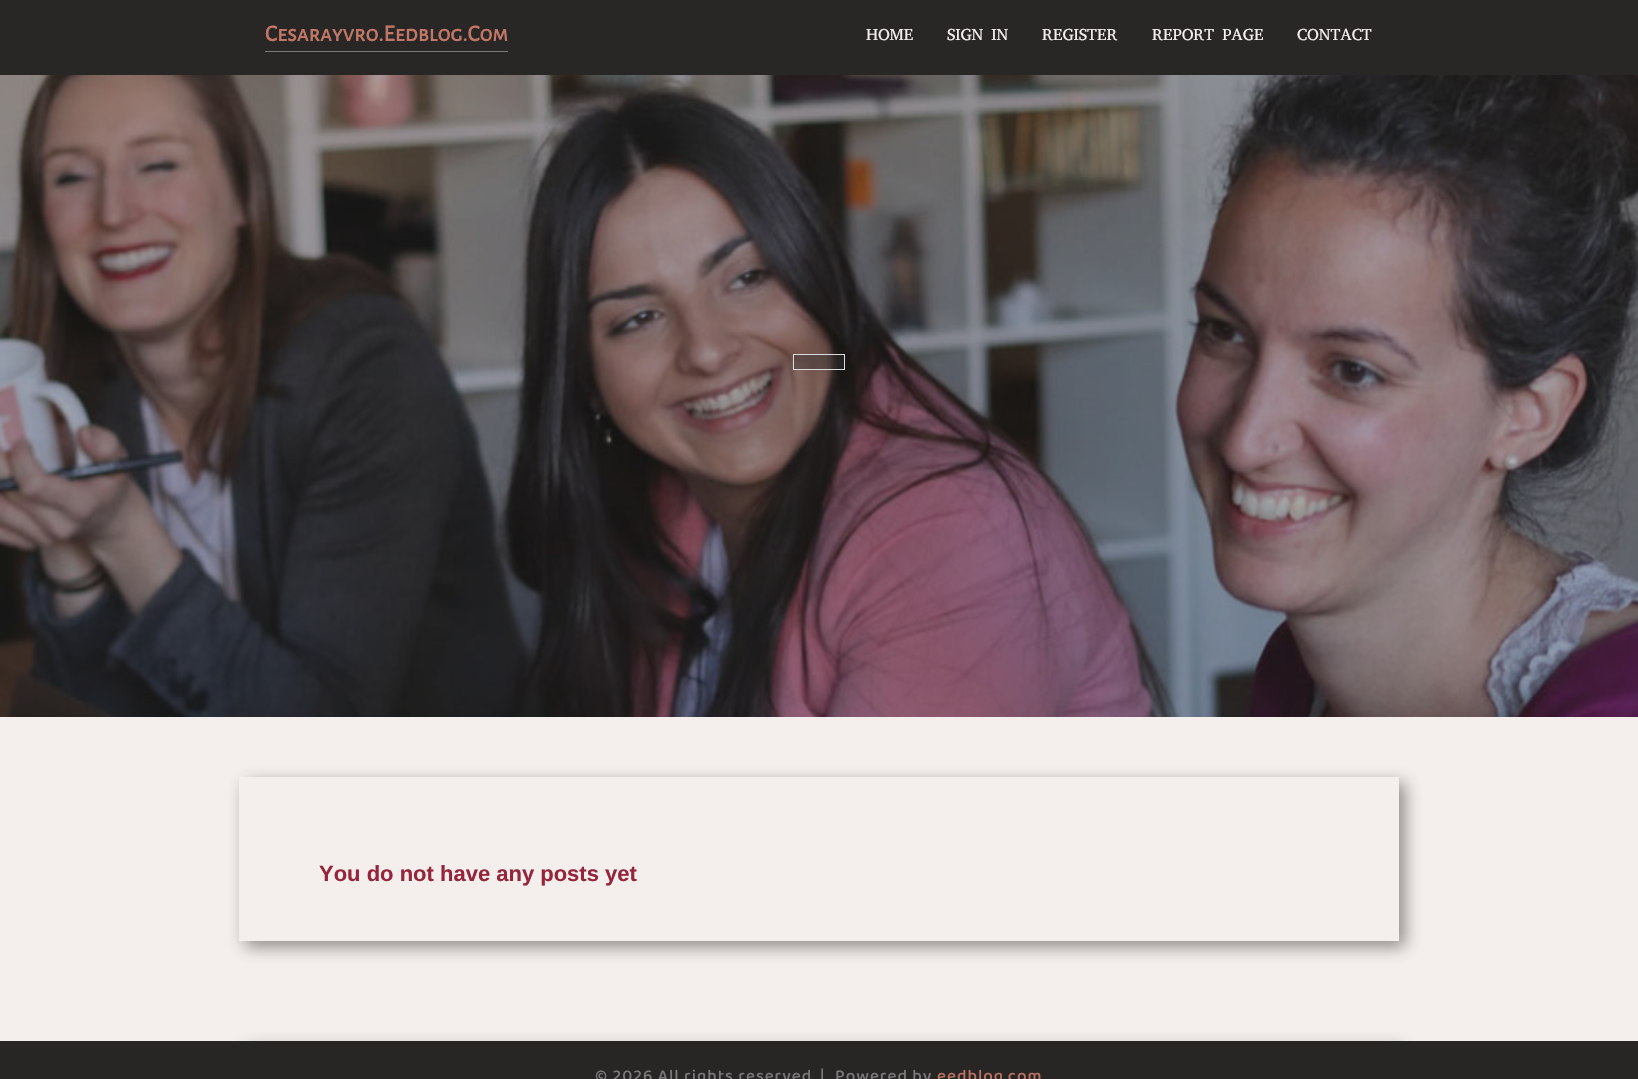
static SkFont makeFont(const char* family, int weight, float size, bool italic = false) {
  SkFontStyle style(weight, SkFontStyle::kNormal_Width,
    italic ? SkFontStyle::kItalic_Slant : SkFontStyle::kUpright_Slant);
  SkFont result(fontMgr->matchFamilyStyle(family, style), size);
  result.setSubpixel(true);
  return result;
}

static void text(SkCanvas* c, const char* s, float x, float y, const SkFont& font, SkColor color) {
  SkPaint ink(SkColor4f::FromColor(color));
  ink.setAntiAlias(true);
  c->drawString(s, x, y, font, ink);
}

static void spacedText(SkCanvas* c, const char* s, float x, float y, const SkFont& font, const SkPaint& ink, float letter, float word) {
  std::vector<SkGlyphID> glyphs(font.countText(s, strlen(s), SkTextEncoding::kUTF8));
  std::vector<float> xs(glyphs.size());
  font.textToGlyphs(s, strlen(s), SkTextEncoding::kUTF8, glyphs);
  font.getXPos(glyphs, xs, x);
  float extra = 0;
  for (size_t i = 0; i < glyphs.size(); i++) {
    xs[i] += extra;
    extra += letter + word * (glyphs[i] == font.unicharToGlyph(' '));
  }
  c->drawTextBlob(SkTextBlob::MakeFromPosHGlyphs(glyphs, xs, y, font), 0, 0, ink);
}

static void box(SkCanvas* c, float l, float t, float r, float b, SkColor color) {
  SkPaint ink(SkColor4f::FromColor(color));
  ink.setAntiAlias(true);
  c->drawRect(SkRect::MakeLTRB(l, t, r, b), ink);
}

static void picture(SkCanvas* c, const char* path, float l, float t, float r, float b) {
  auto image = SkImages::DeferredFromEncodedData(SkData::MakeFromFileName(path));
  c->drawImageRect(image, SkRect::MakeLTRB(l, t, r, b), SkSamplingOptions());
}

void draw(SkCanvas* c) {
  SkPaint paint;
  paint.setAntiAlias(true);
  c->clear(0xfff4efec);
  box(c, 0, 0, 1638, 75, 0xff282726);
  SkFont face1 = makeFont("Alegreya Sans SC", 700, 23);
  text(c, "Cesarayvro.Eedblog.Com", 265, 41, face1, 0xffc27766);
  box(c, 265, 51, 508, 52, 0xff7b7a7a);
  SkFont face2 = makeFont("Peddana", 400, 25);
  text(c, "HOME", 866, 40, face2, 0xfff4efec);
  text(c, "SIGN IN", 947, 40, face2, 0xfff4efec);
  text(c, "REGISTER", 1042, 40, face2, 0xfff4efec);
  text(c, "REPORT PAGE", 1152, 40, face2, 0xfff4efec);
  text(c, "CONTACT", 1297, 40, face2, 0xfff4efec);
  picture(c, "img_01.png", 0, 75, 1638, 717);
  paint.setColor(0x66343332);
  c->drawRect(SkRect::MakeLTRB(793.5f, 354.5f, 844.5f, 369.5f), paint);
  paint.setStyle(SkPaint::kStroke_Style);
  paint.setStrokeWidth(1);
  paint.setColor(0xffdadce0);
  c->drawRect(SkRect::MakeLTRB(793.5f, 354.5f, 844.5f, 369.5f), paint);
  c->save();
  c->clipPath(SkPathBuilder(SkPathFillType::kEvenOdd).moveTo(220, 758).lineTo(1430, 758).lineTo(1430, 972).lineTo(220, 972).close().moveTo(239, 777).lineTo(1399, 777).lineTo(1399, 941).lineTo(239, 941).close().detach(), true);
  paint.setStyle(SkPaint::kFill_Style);
  paint.setColor(0x80272625);
  paint.setMaskFilter(SkMaskFilter::MakeBlur(kNormal_SkBlurStyle, 8));
  c->drawRect(SkRect::MakeLTRB(245, 783, 1405, 947), paint);
  paint.setMaskFilter(nullptr);
  c->restore();
  SkFont face3 = makeFont("Liberation Sans", 700, 22);
  text(c, "You do not have any posts yet", 319, 881, face3, 0xff96243a);
  paint.setMaskFilter(SkMaskFilter::MakeBlur(kNormal_SkBlurStyle, 8));
  c->drawRect(SkRect::MakeLTRB(245, 1047, 1405, 1053), paint);
  paint.setMaskFilter(nullptr);
  box(c, 0, 1041, 1638, 1079, 0xff272625);
  SkFont face4 = makeFont("Baloo 2", 500, 17);
  paint.setColor(0xff7b7a7a);
  spacedText(c, "© 2026 All rights reserved", 595, 1081, face4, paint, 1, 0);
  spacedText(c, "|", 820, 1080, face4, paint, 1, 0);
  spacedText(c, "Powered by", 835, 1081, face4, paint, 1, 0);
  paint.setColor(0xffbc7363);
  spacedText(c, "eedblog.com", 937, 1081, face4, paint, 1, 0);
}
